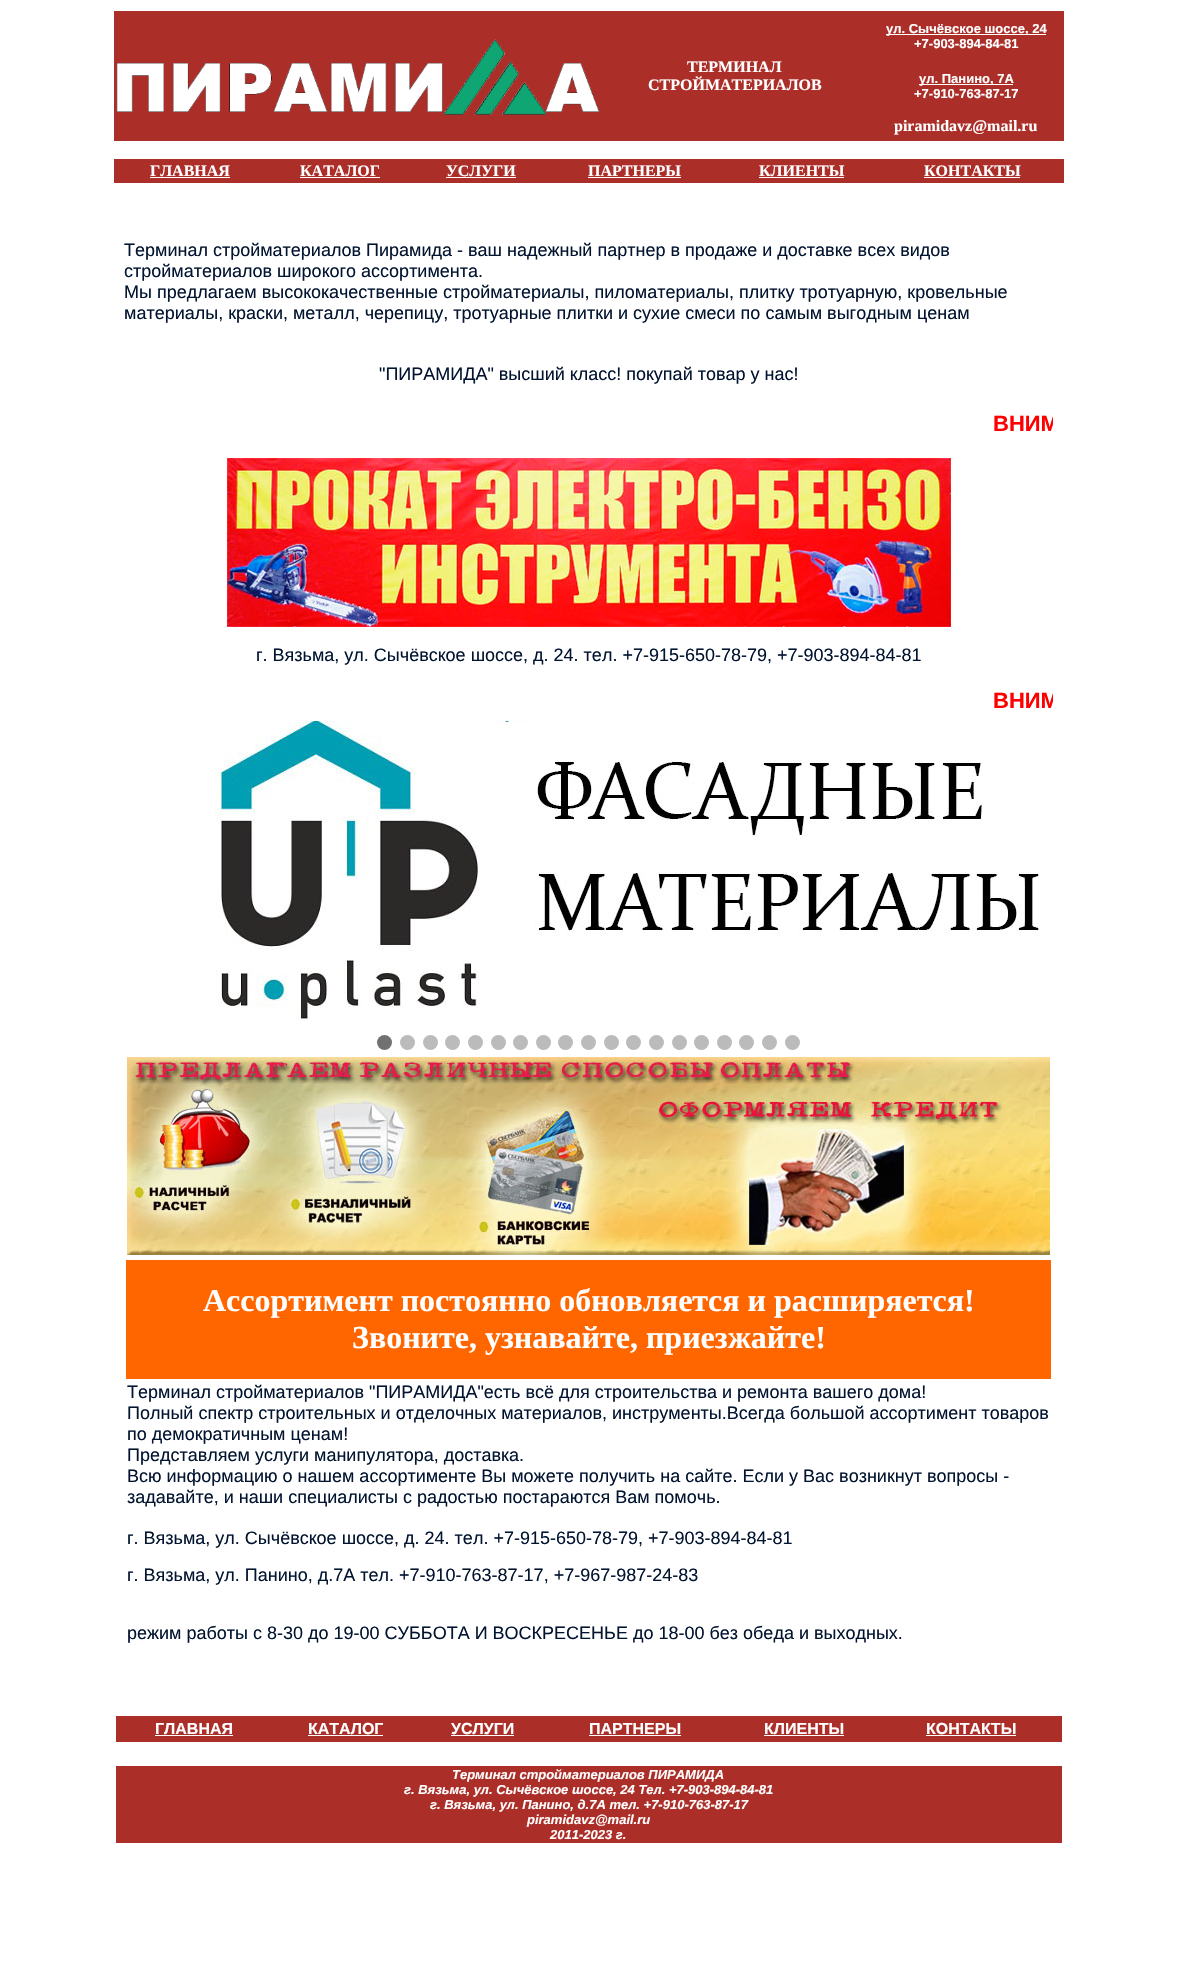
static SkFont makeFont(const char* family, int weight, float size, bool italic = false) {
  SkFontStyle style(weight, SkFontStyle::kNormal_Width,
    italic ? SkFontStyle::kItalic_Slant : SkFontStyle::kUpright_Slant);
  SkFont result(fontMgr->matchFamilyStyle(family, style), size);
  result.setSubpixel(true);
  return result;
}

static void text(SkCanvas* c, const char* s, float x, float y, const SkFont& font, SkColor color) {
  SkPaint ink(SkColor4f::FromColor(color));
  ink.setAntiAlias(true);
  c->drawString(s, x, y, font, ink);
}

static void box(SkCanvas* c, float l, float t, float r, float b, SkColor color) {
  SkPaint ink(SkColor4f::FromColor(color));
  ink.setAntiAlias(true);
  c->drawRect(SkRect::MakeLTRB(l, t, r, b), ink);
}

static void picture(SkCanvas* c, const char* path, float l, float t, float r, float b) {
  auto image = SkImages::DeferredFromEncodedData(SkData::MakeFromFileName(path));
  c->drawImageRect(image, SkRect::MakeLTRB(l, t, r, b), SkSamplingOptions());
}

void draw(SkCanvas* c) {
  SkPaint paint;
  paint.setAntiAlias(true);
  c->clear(0xffffffff);
  box(c, 114, 11, 868, 141, 0xffab2e28);
  picture(c, "img_01.png", 116, 39, 600, 115);
  box(c, 868, 11, 1064, 141, 0xffab2e28);
  box(c, 886, 34, 1046, 35, 0xffffffff);
  SkFont face1 = makeFont("Liberation Sans", 700, 13);
  text(c, "ул. Сычёвское шоссе, 24", 886, 33, face1, 0xffffffff);
  text(c, "+7-903-894-84-81", 914, 48, face1, 0xffffffff);
  SkFont face2 = makeFont("Liberation Serif", 700, 16);
  text(c, "ТЕРМИНАЛ", 687, 72, face2, 0xffffffff);
  text(c, "СТРОЙМАТЕРИАЛОВ", 648, 90, face2, 0xffffffff);
  box(c, 919, 84, 1013, 85, 0xffffffff);
  text(c, "ул. Панино, 7А", 919, 83, face1, 0xffffffff);
  text(c, "+7-910-763-87-17", 914, 98, face1, 0xffffffff);
  text(c, "piramidavz@mail.ru", 894, 131, face2, 0xffffffff);
  box(c, 114, 159, 1064, 183, 0xffab2e28);
  text(c, "ГЛАВНАЯ", 150, 176, face2, 0xffffffff);
  box(c, 150, 177, 230, 178, 0xffffffff);
  text(c, "КАТАЛОГ", 300, 176, face2, 0xffffffff);
  box(c, 300, 177, 380, 178, 0xffffffff);
  text(c, "УСЛУГИ", 446, 176, face2, 0xffffffff);
  box(c, 446, 177, 516, 178, 0xffffffff);
  text(c, "ПАРТНЕРЫ", 588, 176, face2, 0xffffffff);
  box(c, 588, 177, 681, 178, 0xffffffff);
  text(c, "КЛИЕНТЫ", 759, 176, face2, 0xffffffff);
  box(c, 759, 177, 844, 178, 0xffffffff);
  text(c, "КОНТАКТЫ", 924, 176, face2, 0xffffffff);
  box(c, 924, 177, 1020, 178, 0xffffffff);
  SkFont face3 = makeFont("Liberation Sans", 400, 18);
  text(c, "Терминал стройматериалов Пирамида - ваш надежный партнер в продаже и доставке всех видов", 124, 256, face3, 0xff021430);
  text(c, "стройматериалов широкого ассортимента.", 124, 277, face3, 0xff021430);
  text(c, "Мы предлагаем высококачественные стройматериалы, пиломатериалы, плитку тротуарную, кровельные", 124, 298, face3, 0xff021430);
  text(c, "материалы, краски, металл, черепицу, тротуарные плитки и сухие смеси по самым выгодным ценам", 124, 319, face3, 0xff021430);
  text(c, "\"ПИРАМИДА\" высший класс! покупай товар у нас!", 379, 380, face3, 0xff021430);
  c->save();
  c->clipRect(SkRect::MakeLTRB(124, 407, 1053, 440));
  SkFont face4 = makeFont("Liberation Sans", 700, 22);
  text(c, "ВНИМ", 993, 431, face4, 0xffff0000);
  c->restore();
  picture(c, "img_02.png", 227, 458, 951, 627);
  text(c, "г. Вязьма, ул. Сычёвское шоссе, д. 24. тел. +7-915-650-78-79, +7-903-894-84-81", 256, 661, face3, 0xff021430);
  c->save();
  c->clipRect(SkRect::MakeLTRB(124, 684, 1053, 717));
  text(c, "ВНИМ", 993, 708, face4, 0xffff0000);
  c->restore();
  picture(c, "img_03.png", 215, 720, 1039, 1020);
  paint.setColor(0xff717171);
  c->drawCircle(384.5f, 1042.5f, 7.5f, paint);
  paint.setColor(0xffbbbbbb);
  c->drawCircle(407.5f, 1042.5f, 7.5f, paint);
  c->drawCircle(430.5f, 1042.5f, 7.5f, paint);
  c->drawCircle(452.5f, 1042.5f, 7.5f, paint);
  c->drawCircle(475.5f, 1042.5f, 7.5f, paint);
  c->drawCircle(498.5f, 1042.5f, 7.5f, paint);
  c->drawCircle(520.5f, 1042.5f, 7.5f, paint);
  c->drawCircle(543.5f, 1042.5f, 7.5f, paint);
  c->drawCircle(565.5f, 1042.5f, 7.5f, paint);
  c->drawCircle(588.5f, 1042.5f, 7.5f, paint);
  c->drawCircle(611.5f, 1042.5f, 7.5f, paint);
  c->drawCircle(633.5f, 1042.5f, 7.5f, paint);
  c->drawCircle(656.5f, 1042.5f, 7.5f, paint);
  c->drawCircle(679.5f, 1042.5f, 7.5f, paint);
  c->drawCircle(701.5f, 1042.5f, 7.5f, paint);
  c->drawCircle(724.5f, 1042.5f, 7.5f, paint);
  c->drawCircle(746.5f, 1042.5f, 7.5f, paint);
  c->drawCircle(769.5f, 1042.5f, 7.5f, paint);
  c->drawCircle(792.5f, 1042.5f, 7.5f, paint);
  picture(c, "img_04.png", 127, 1057, 1050, 1255);
  box(c, 126, 1260, 1051, 1379, 0xffff6600);
  SkFont face5 = makeFont("Liberation Serif", 700, 32);
  text(c, "Ассортимент постоянно обновляется и расширяется!", 203, 1311, face5, 0xffffffff);
  text(c, "Звоните, узнавайте, приезжайте!", 352, 1348, face5, 0xffffffff);
  text(c, "Терминал стройматериалов \"ПИРАМИДА\"есть всё для строительства и ремонта вашего дома!", 127, 1398, face3, 0xff021430);
  text(c, "Полный спектр строительных и отделочных материалов, инструменты.Всегда большой ассортимент товаров", 127, 1419, face3, 0xff021430);
  text(c, "по демократичным ценам!", 127, 1440, face3, 0xff021430);
  text(c, "Представляем услуги манипулятора, доставка.", 127, 1461, face3, 0xff021430);
  text(c, "Всю информацию о нашем ассортименте Вы можете получить на сайте. Если у Вас возникнут вопросы -", 127, 1482, face3, 0xff021430);
  text(c, "задавайте, и наши специалисты с радостью постараются Вам помочь.", 127, 1503, face3, 0xff021430);
  text(c, "г. Вязьма, ул. Сычёвское шоссе, д. 24. тел. +7-915-650-78-79, +7-903-894-84-81", 127, 1544, face3, 0xff021430);
  text(c, "г. Вязьма, ул. Панино, д.7А тел. +7-910-763-87-17, +7-967-987-24-83", 127, 1581, face3, 0xff021430);
  text(c, "режим работы с 8-30 до 19-00 СУББОТА И ВОСКРЕСЕНЬЕ до 18-00 без обеда и выходных.", 127, 1639, face3, 0xff021430);
  box(c, 116, 1716, 1062, 1742, 0xffab2e28);
  SkFont face6 = makeFont("Liberation Sans", 700, 16);
  text(c, "ГЛАВНАЯ", 155, 1734, face6, 0xffffffff);
  box(c, 155, 1735, 233, 1736, 0xffffffff);
  text(c, "КАТАЛОГ", 308, 1734, face6, 0xffffffff);
  box(c, 308, 1735, 383, 1736, 0xffffffff);
  text(c, "УСЛУГИ", 451, 1734, face6, 0xffffffff);
  box(c, 451, 1735, 514, 1736, 0xffffffff);
  text(c, "ПАРТНЕРЫ", 589, 1734, face6, 0xffffffff);
  box(c, 589, 1735, 681, 1736, 0xffffffff);
  text(c, "КЛИЕНТЫ", 764, 1734, face6, 0xffffffff);
  box(c, 764, 1735, 844, 1736, 0xffffffff);
  text(c, "КОНТАКТЫ", 926, 1734, face6, 0xffffffff);
  box(c, 926, 1735, 1016, 1736, 0xffffffff);
  box(c, 116, 1766, 1062, 1843, 0xffab2e28);
  SkFont face7 = makeFont("Liberation Sans", 700, 13, true);
  text(c, "Терминал стройматериалов ПИРАМИДА", 452, 1779, face7, 0xffffffff);
  text(c, "г. Вязьма, ул. Сычёвское шоссе, 24 Тел. +7-903-894-84-81", 404, 1794, face7, 0xffffffff);
  text(c, "г. Вязьма, ул. Панино, д.7А тел. +7-910-763-87-17", 430, 1809, face7, 0xffffffff);
  text(c, "piramidavz@mail.ru", 527, 1824, face7, 0xffffffff);
  text(c, "2011-2023 г.", 550, 1839, face7, 0xffffffff);
}
